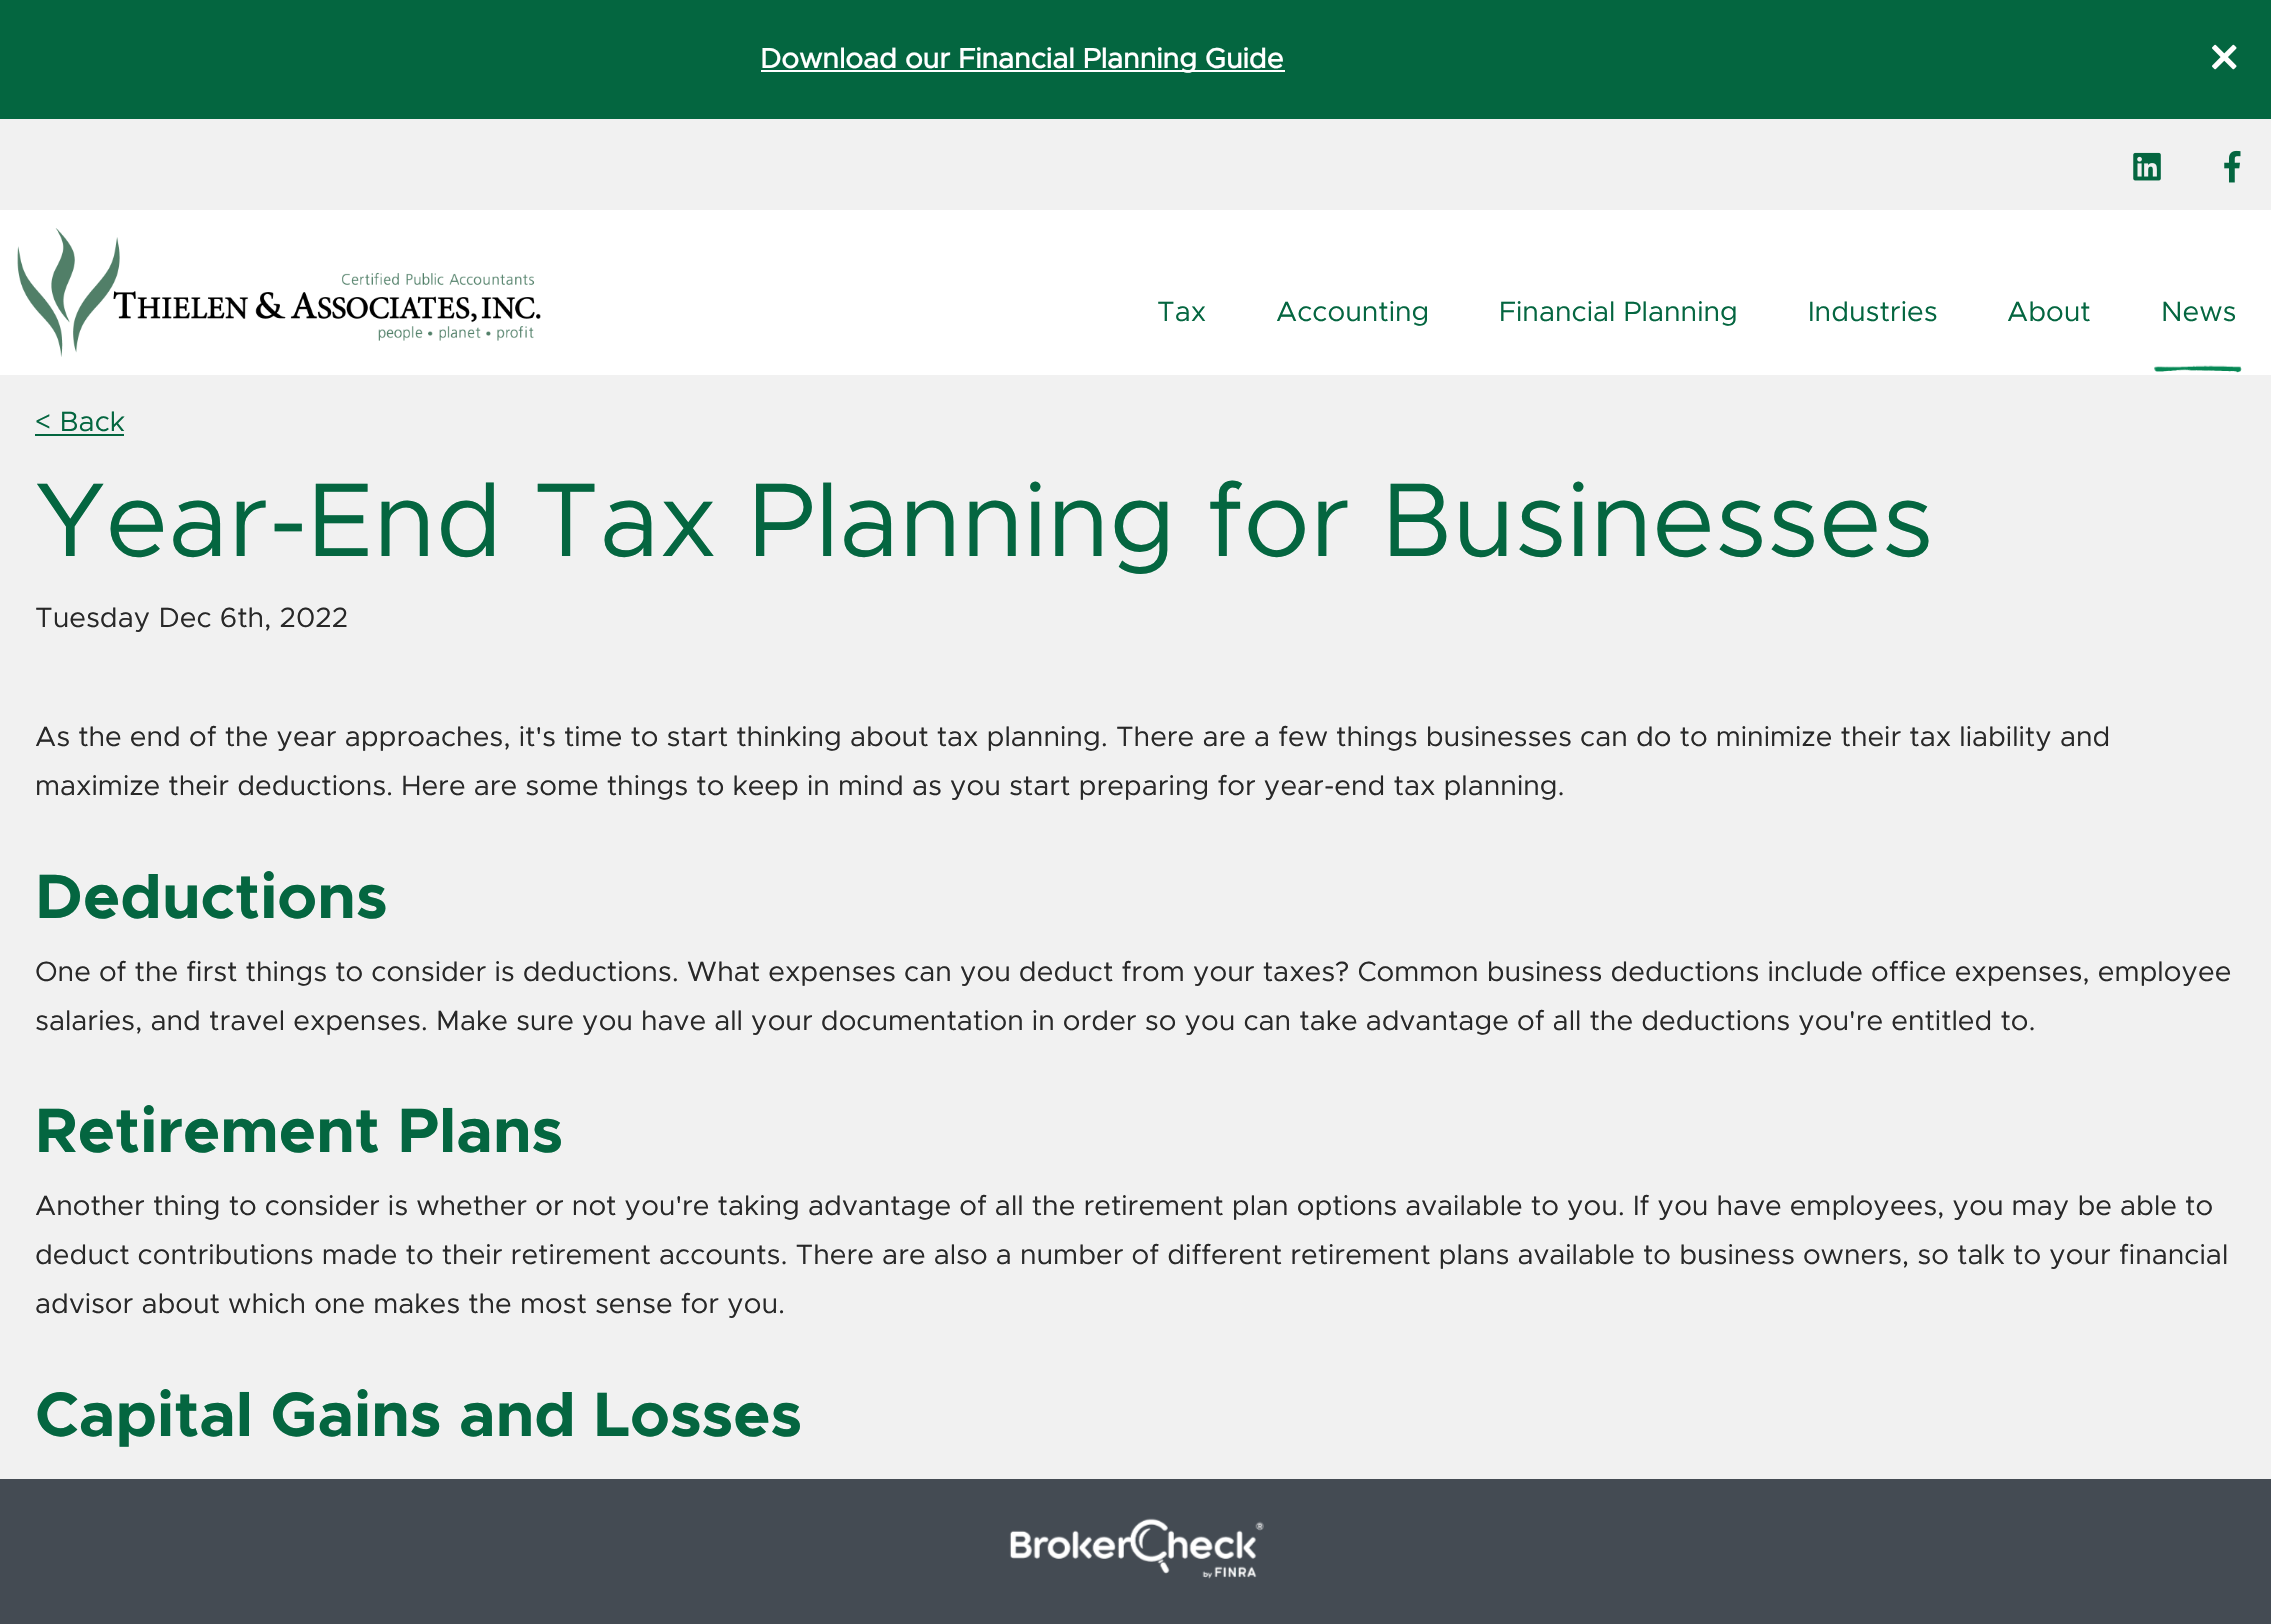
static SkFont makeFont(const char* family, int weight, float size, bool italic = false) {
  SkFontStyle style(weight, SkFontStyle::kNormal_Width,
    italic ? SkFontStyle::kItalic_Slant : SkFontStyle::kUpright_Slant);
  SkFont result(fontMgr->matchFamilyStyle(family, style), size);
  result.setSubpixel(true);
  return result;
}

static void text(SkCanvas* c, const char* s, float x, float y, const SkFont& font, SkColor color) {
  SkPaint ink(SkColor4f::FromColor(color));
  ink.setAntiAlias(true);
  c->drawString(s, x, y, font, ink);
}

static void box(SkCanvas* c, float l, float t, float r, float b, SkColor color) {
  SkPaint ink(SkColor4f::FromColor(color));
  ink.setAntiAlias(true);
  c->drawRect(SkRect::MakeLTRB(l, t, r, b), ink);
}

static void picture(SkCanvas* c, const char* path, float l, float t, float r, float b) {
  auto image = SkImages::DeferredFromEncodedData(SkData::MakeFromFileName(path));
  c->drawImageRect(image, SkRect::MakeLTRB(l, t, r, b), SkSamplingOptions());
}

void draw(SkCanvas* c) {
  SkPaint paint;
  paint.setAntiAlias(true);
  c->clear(0xfff1f1f1);
  box(c, 0, 0, 2271, 119, 0xff046640);
  box(c, 761, 70, 1285, 72, 0xffffffff);
  SkFont face1 = makeFont("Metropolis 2", 700, 28);
  text(c, "Download our Financial Planning Guide", 760, 68, face1, 0xffffffff);
  picture(c, "img_01.png", 2212, 44, 2237, 70);
  box(c, 0, 210, 2271, 375, 0xffffffff);
  picture(c, "img_02.png", 2133, 152, 2161, 181);
  picture(c, "img_03.png", 2224, 150, 2241, 183);
  picture(c, "img_04.png", 17, 228, 541, 357);
  SkFont face2 = makeFont("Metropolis", 400, 28);
  text(c, "Tax", 1157, 321, face2, 0xff046640);
  text(c, "Accounting", 1276, 321, face2, 0xff046640);
  text(c, "Financial Planning", 1499, 321, face2, 0xff046640);
  text(c, "Industries", 1808, 321, face2, 0xff046640);
  text(c, "About", 2007, 321, face2, 0xff046640);
  picture(c, "img_05.png", 2154, 365, 2242, 373);
  text(c, "News", 2161, 321, face2, 0xff046640);
  text(c, "< Back", 35, 431, face2, 0xff046640);
  box(c, 35, 434, 124, 436, 0xff046640);
  SkFont face3 = makeFont("Metropolis", 400, 105);
  text(c, "Year-End Tax Planning for Businesses", 35, 556, face3, 0xff046640);
  text(c, "Tuesday Dec 6th, 2022", 35, 627, face2, 0xff282828);
  text(c, "As the end of the year approaches, it's time to start thinking about tax planning. There are a few things businesses can do to minimize their tax liability and", 35, 746, face2, 0xff282828);
  text(c, "maximize their deductions. Here are some things to keep in mind as you start preparing for year-end tax planning.", 35, 795, face2, 0xff282828);
  SkFont face4 = makeFont("Metropolis", 700, 63);
  text(c, "Deductions", 35, 918, face4, 0xff046640);
  text(c, "One of the first things to consider is deductions. What expenses can you deduct from your taxes? Common business deductions include office expenses, employee", 35, 981, face2, 0xff282828);
  text(c, "salaries, and travel expenses. Make sure you have all your documentation in order so you can take advantage of all the deductions you're entitled to.", 35, 1030, face2, 0xff282828);
  text(c, "Retirement Plans", 35, 1152, face4, 0xff046640);
  text(c, "Another thing to consider is whether or not you're taking advantage of all the retirement plan options available to you. If you have employees, you may be able to", 35, 1215, face2, 0xff282828);
  text(c, "deduct contributions made to their retirement accounts. There are also a number of different retirement plans available to business owners, so talk to your financial", 35, 1264, face2, 0xff282828);
  text(c, "advisor about which one makes the most sense for you.", 35, 1313, face2, 0xff282828);
  text(c, "Capital Gains and Losses", 35, 1436, face4, 0xff046640);
  box(c, 0, 1479, 2271, 1624, 0xff444b53);
  picture(c, "img_06.png", 1009, 1518, 1264, 1579);
}
